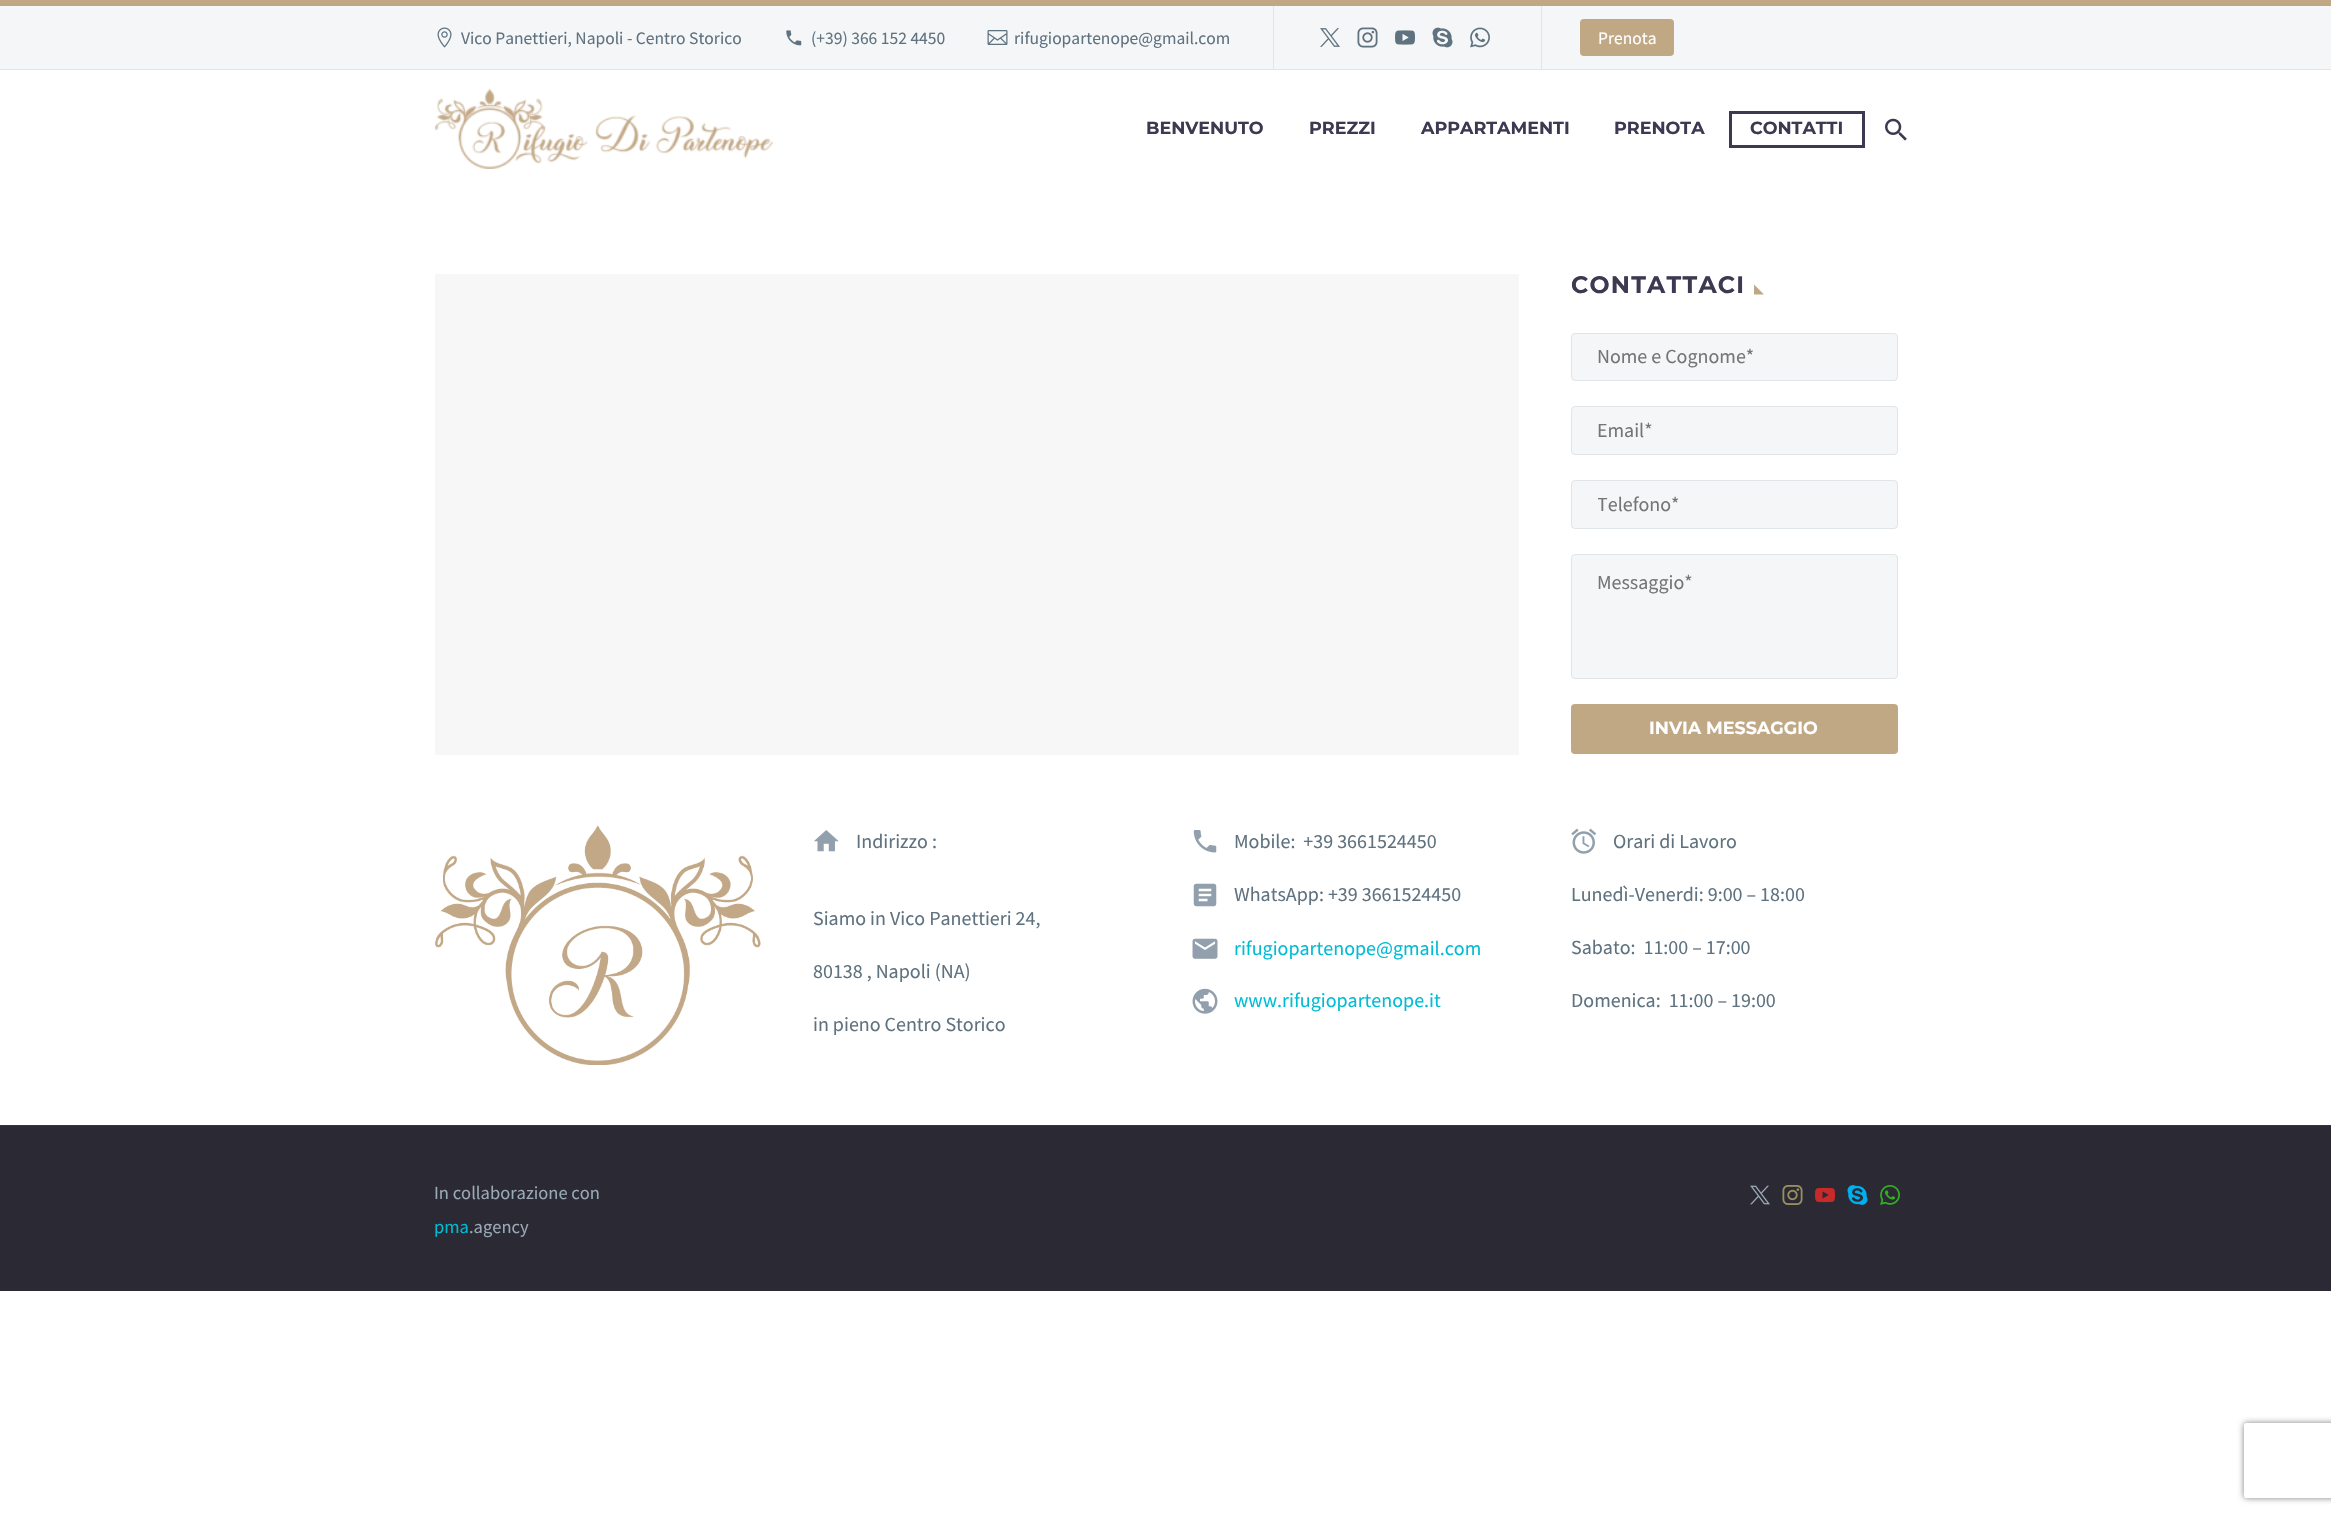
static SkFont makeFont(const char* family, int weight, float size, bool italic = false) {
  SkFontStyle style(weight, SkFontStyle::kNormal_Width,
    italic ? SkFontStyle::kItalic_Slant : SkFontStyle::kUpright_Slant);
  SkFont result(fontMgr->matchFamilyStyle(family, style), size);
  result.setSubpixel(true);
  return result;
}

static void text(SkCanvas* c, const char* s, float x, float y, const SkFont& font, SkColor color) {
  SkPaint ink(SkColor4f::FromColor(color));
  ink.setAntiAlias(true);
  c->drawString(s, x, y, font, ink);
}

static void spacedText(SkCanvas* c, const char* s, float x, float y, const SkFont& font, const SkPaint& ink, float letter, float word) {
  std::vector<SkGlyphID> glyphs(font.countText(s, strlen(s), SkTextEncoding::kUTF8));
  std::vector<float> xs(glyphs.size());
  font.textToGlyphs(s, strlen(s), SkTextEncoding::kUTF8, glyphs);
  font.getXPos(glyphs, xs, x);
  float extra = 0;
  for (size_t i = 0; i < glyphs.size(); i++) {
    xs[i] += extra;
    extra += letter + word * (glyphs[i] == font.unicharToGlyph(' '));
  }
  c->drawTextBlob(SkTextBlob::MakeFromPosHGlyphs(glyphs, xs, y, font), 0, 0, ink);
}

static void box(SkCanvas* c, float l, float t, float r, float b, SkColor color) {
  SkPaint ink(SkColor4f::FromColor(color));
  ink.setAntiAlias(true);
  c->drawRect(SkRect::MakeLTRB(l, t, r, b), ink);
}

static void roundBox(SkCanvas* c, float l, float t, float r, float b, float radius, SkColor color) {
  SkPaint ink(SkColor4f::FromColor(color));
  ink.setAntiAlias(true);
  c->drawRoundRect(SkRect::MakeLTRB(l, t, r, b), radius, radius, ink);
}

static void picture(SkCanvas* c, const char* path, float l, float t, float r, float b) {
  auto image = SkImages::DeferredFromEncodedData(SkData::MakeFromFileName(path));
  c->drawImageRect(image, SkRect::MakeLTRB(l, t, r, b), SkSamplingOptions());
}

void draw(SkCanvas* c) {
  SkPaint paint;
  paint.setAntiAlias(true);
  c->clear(0xffffffff);
  box(c, 0, 6, 2331, 69, 0xfff4f6f7);
  box(c, 0, 0, 2331, 6, 0xffc1a885);
  box(c, 0, 69, 2331, 70, 0xffdfe5e8);
  picture(c, "img_01.png", 437, 27, 452, 48);
  SkFont face1 = makeFont("Source Sans Pro", 400, 17.5f);
  text(c, "Vico Panettieri, Napoli - Centro Storico", 461, 44, face1, 0xff5f727f);
  picture(c, "img_02.png", 786, 30, 802, 46);
  text(c, "(+39) 366 152 4450", 811, 44, face1, 0xff5f727f);
  picture(c, "img_03.png", 987, 30, 1008, 45);
  text(c, "rifugiopartenope@gmail.com", 1014, 44, face1, 0xff5f727f);
  box(c, 1273, 6, 1274, 69, 0xffdfe5e8);
  picture(c, "img_04.png", 1320, 28, 1340, 47);
  picture(c, "img_05.png", 1357, 27, 1378, 48);
  picture(c, "img_06.png", 1395, 30, 1415, 45);
  picture(c, "img_07.png", 1432, 27, 1453, 48);
  picture(c, "img_08.png", 1470, 27, 1490, 48);
  box(c, 1541, 6, 1542, 69, 0xffdfe5e8);
  roundBox(c, 1580, 19, 1674, 56, 4, 0xffc1a885);
  text(c, "Prenota", 1598, 44, face1, 0xffffffff);
  picture(c, "img_09.png", 435, 88, 773, 169);
  SkFont face2 = makeFont("Montserrat", 700, 17.5f);
  text(c, "BENVENUTO", 1146, 134, face2, 0xff3c3950);
  text(c, "PREZZI", 1309, 134, face2, 0xff3c3950);
  text(c, "APPARTAMENTI", 1421, 134, face2, 0xff3c3950);
  text(c, "PRENOTA", 1614, 134, face2, 0xff3c3950);
  paint.setStyle(SkPaint::kStroke_Style);
  paint.setStrokeWidth(3);
  paint.setColor(0xff3c3950);
  c->drawRect(SkRect::MakeLTRB(1730.5f, 112.5f, 1863.5f, 146.5f), paint);
  text(c, "CONTATTI", 1750, 134, face2, 0xff3c3950);
  picture(c, "img_10.png", 1885, 118, 1907, 141);
  box(c, 435, 274, 1519, 755, 0xfff7f7f7);
  SkFont face3 = makeFont("Montserrat", 700, 23.75f);
  paint.setStyle(SkPaint::kFill_Style);
  spacedText(c, "CONTATTACI", 1571, 293, face3, paint, 1.25f, 0);
  paint.setColor(0xffc1a885);
  c->drawPath(SkPathBuilder().moveTo(1754, 284.5f).lineTo(1754, 294.5f).lineTo(1764, 294.5f).close().detach(), paint);
  paint.setColor(0xfff4f6f7);
  c->drawRoundRect(SkRect::MakeLTRB(1571.5f, 333.5f, 1897.5f, 380.5f), 3.5f, 3.5f, paint);
  paint.setStyle(SkPaint::kStroke_Style);
  paint.setStrokeWidth(1);
  paint.setColor(0xffdfe5e8);
  c->drawRoundRect(SkRect::MakeLTRB(1571.5f, 333.5f, 1897.5f, 380.5f), 3.5f, 3.5f, paint);
  SkFont face4 = makeFont("Source Sans Pro", 400, 20);
  text(c, "Nome e Cognome*", 1597, 363, face4, 0xff757575);
  paint.setStyle(SkPaint::kFill_Style);
  paint.setColor(0xfff4f6f7);
  c->drawRoundRect(SkRect::MakeLTRB(1571.5f, 406.5f, 1897.5f, 454.5f), 3.5f, 3.5f, paint);
  paint.setStyle(SkPaint::kStroke_Style);
  paint.setColor(0xffdfe5e8);
  c->drawRoundRect(SkRect::MakeLTRB(1571.5f, 406.5f, 1897.5f, 454.5f), 3.5f, 3.5f, paint);
  text(c, "Email*", 1597, 437, face4, 0xff757575);
  paint.setStyle(SkPaint::kFill_Style);
  paint.setColor(0xfff4f6f7);
  c->drawRoundRect(SkRect::MakeLTRB(1571.5f, 480.5f, 1897.5f, 528.5f), 3.5f, 3.5f, paint);
  paint.setStyle(SkPaint::kStroke_Style);
  paint.setColor(0xffdfe5e8);
  c->drawRoundRect(SkRect::MakeLTRB(1571.5f, 480.5f, 1897.5f, 528.5f), 3.5f, 3.5f, paint);
  c->save();
  c->clipRect(SkRect::MakeLTRB(1598, 491, 1846, 516));
  text(c, "Telefono*", 1597, 511, face4, 0xff757575);
  c->restore();
  paint.setStyle(SkPaint::kFill_Style);
  paint.setColor(0xfff4f6f7);
  c->drawRoundRect(SkRect::MakeLTRB(1571.5f, 554.5f, 1897.5f, 678.5f), 3.5f, 3.5f, paint);
  paint.setStyle(SkPaint::kStroke_Style);
  paint.setColor(0xffdfe5e8);
  c->drawRoundRect(SkRect::MakeLTRB(1571.5f, 554.5f, 1897.5f, 678.5f), 3.5f, 3.5f, paint);
  text(c, "Messaggio*", 1597, 589, face4, 0xff757575);
  roundBox(c, 1571, 704, 1898, 754, 4, 0xffc1a885);
  text(c, "INVIA MESSAGGIO", 1649, 734, face2, 0xffffffff);
  picture(c, "img_11.png", 435, 825, 761, 1065);
  picture(c, "img_12.png", 814, 830, 826, 852);
  picture(c, "img_13.png", 826, 830, 839, 852);
  text(c, "Indirizzo :", 856, 848, face4, 0xff5f727f);
  text(c, "Siamo in Vico Panettieri 24,", 813, 925, face4, 0xff5f727f);
  text(c, "80138 , Napoli (NA)", 813, 978, face4, 0xff5f727f);
  text(c, "in pieno Centro Storico", 813, 1031, face4, 0xff5f727f);
  picture(c, "img_14.png", 1193, 830, 1205, 850);
  picture(c, "img_15.png", 1205, 844, 1217, 853);
  text(c, "Mobile:  +39 3661524450", 1234, 848, face4, 0xff5f727f);
  picture(c, "img_16.png", 1193, 883, 1205, 907);
  picture(c, "img_17.png", 1205, 883, 1217, 907);
  text(c, "WhatsApp: +39 3661524450", 1234, 901, face4, 0xff5f727f);
  picture(c, "img_18.png", 1192, 938, 1205, 959);
  picture(c, "img_19.png", 1205, 938, 1218, 959);
  text(c, "rifugiopartenope@gmail.com", 1234, 955, face4, 0xff00bcd4);
  picture(c, "img_20.png", 1192, 988, 1205, 1014);
  picture(c, "img_21.png", 1205, 988, 1218, 1014);
  text(c, "www.rifugiopartenope.it", 1234, 1007, face4, 0xff00bcd4);
  picture(c, "img_22.png", 1571, 828, 1584, 854);
  picture(c, "img_23.png", 1584, 828, 1597, 854);
  text(c, "Orari di Lavoro", 1613, 848, face4, 0xff5f727f);
  text(c, "Lunedì-Venerdi: 9:00 – 18:00", 1571, 901, face4, 0xff5f727f);
  text(c, "Sabato:  11:00 – 17:00", 1571, 954, face4, 0xff5f727f);
  text(c, "Domenica:  11:00 – 19:00", 1571, 1007, face4, 0xff5f727f);
  box(c, 0, 1126, 2331, 1291, 0xff2b2933);
  box(c, 0, 1125, 2331, 1126, 0xff313646);
  SkFont face5 = makeFont("Source Sans Pro", 400, 18.5f);
  text(c, "In collaborazione con", 434, 1199, face5, 0xff99a9b5);
  text(c, "pma", 434, 1233, face5, 0xff00bcd4);
  text(c, ".agency", 469, 1233, face5, 0xff99a9b5);
  picture(c, "img_24.png", 1750, 1185, 1770, 1205);
  picture(c, "img_25.png", 1782, 1185, 1803, 1205);
  picture(c, "img_26.png", 1815, 1187, 1835, 1203);
  picture(c, "img_27.png", 1847, 1185, 1868, 1205);
  picture(c, "img_28.png", 1880, 1185, 1900, 1205);
  c->save();
  c->clipPath(SkPathBuilder(SkPathFillType::kEvenOdd).moveTo(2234, 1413).lineTo(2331, 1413).lineTo(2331, 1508).lineTo(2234, 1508).close().moveTo(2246.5f, 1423).lineTo(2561.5f, 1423).cubicTo(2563, 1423, 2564, 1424, 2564, 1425.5f).lineTo(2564, 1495.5f).cubicTo(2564, 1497, 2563, 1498, 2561.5f, 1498).lineTo(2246.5f, 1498).cubicTo(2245, 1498, 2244, 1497, 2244, 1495.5f).lineTo(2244, 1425.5f).cubicTo(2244, 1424, 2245, 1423, 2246.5f, 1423).close().detach(), true);
  paint.setStyle(SkPaint::kFill_Style);
  paint.setColor(0xff808080);
  paint.setMaskFilter(SkMaskFilter::MakeBlur(kNormal_SkBlurStyle, 3));
  c->drawRoundRect(SkRect::MakeLTRB(2244, 1423, 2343, 1498), 2.5f, 2.5f, paint);
  paint.setMaskFilter(nullptr);
  c->restore();
}
